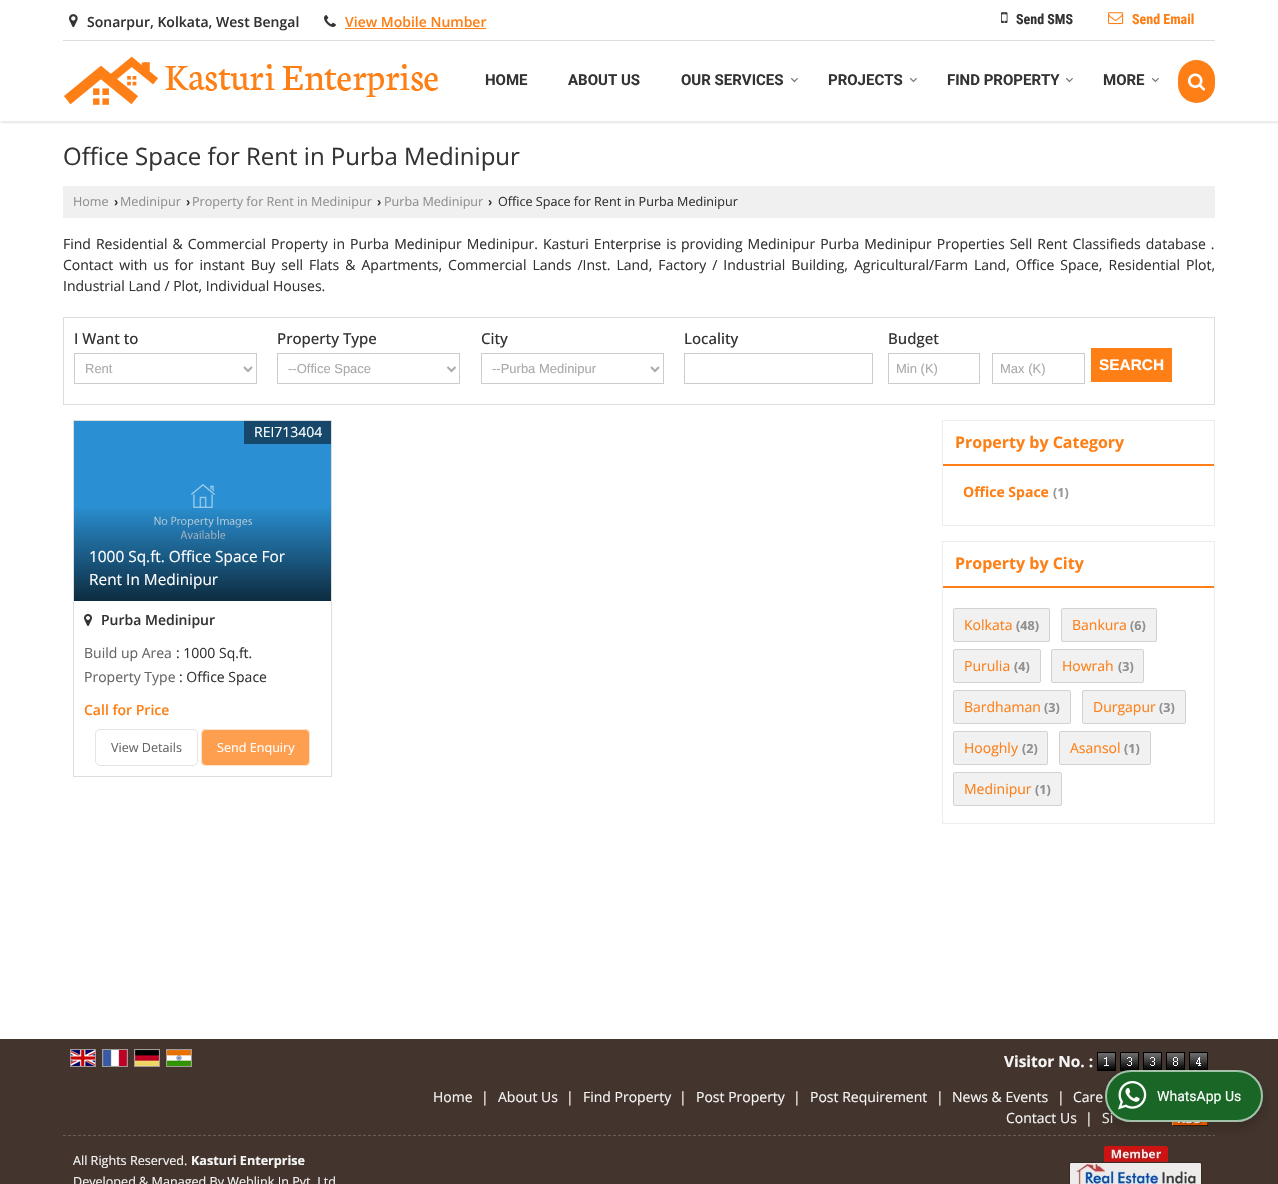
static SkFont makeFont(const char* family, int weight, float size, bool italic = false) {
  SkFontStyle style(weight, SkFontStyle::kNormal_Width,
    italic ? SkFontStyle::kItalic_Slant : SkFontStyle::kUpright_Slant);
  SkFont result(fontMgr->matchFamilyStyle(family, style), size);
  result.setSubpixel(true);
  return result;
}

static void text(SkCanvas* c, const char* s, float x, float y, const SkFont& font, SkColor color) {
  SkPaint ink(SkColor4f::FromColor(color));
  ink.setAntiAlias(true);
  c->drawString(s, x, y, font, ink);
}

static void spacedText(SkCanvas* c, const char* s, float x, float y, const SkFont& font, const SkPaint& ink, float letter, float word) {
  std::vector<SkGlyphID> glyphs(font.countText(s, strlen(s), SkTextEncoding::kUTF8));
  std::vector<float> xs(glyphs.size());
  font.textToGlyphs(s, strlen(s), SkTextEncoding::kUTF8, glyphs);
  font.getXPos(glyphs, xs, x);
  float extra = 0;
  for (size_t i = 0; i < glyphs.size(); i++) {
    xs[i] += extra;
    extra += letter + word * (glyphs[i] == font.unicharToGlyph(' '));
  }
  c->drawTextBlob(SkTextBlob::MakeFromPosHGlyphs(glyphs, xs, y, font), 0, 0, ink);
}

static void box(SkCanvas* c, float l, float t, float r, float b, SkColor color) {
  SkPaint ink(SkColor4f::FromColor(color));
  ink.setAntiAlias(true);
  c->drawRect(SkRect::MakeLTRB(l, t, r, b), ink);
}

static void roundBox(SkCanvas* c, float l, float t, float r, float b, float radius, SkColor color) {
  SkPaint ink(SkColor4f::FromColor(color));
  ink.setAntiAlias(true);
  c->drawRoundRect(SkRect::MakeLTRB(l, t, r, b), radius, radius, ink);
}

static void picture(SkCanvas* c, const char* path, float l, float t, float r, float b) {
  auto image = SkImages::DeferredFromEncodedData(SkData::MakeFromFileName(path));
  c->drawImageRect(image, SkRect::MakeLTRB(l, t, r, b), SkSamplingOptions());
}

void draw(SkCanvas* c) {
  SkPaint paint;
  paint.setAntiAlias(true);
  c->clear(0xffffffff);
  box(c, 63, 40, 1215, 41, 0xffdedede);
  picture(c, "img_01.png", 69, 14, 78, 27);
  SkFont face1 = makeFont("Open Sans", 600, 14);
  text(c, "Sonarpur, Kolkata, West Bengal", 87, 27, face1, 0xff333333);
  picture(c, "img_02.png", 324, 15, 336, 27);
  text(c, "View Mobile Number", 345, 27, face1, 0xfffe7f16);
  box(c, 345, 28, 486, 29, 0xfffe7f16);
  picture(c, "img_03.png", 1001, 12, 1008, 23);
  SkFont face2 = makeFont("Roboto Condensed", 700, 14);
  text(c, "Send SMS", 1016, 24, face2, 0xff333333);
  picture(c, "img_04.png", 1108, 12, 1124, 25);
  text(c, "Send Email", 1132, 24, face2, 0xfffe7f16);
  c->save();
  c->clipRect(SkRect::MakeLTRB(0, 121, 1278, 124));
  paint.setColor(0x1a000000);
  paint.setMaskFilter(SkMaskFilter::MakeBlur(kNormal_SkBlurStyle, 1.5f));
  c->drawRect(SkRect::MakeLTRB(1, 43, 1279, 123), paint);
  paint.setMaskFilter(nullptr);
  c->restore();
  picture(c, "img_05.png", 63, 56, 439, 105);
  SkFont face3 = makeFont("Roboto", 700, 15);
  text(c, "HOME", 485, 85, face3, 0xff333333);
  text(c, "ABOUT US", 568, 85, face3, 0xff333333);
  text(c, "OUR SERVICES", 681, 85, face3, 0xff333333);
  picture(c, "img_06.png", 791, 78, 798, 83);
  text(c, "PROJECTS", 828, 85, face3, 0xff333333);
  picture(c, "img_06.png", 910, 78, 917, 83);
  text(c, "FIND PROPERTY", 947, 85, face3, 0xff333333);
  picture(c, "img_06.png", 1066, 78, 1073, 83);
  text(c, "MORE", 1103, 85, face3, 0xff333333);
  picture(c, "img_06.png", 1152, 78, 1159, 83);
  roundBox(c, 1178, 60, 1215, 103, 18.5f, 0xfffe7f16);
  picture(c, "img_07.png", 1188, 73, 1206, 91);
  SkFont face4 = makeFont("Open Sans", 400, 24);
  text(c, "Office Space for Rent in Purba Medinipur", 63, 165, face4, 0xff333333);
  box(c, 63, 186, 1215, 218, 0xfff0f0f0);
  SkFont face5 = makeFont("Open Sans", 400, 12.6f);
  text(c, "Home", 73, 206, face5, 0xff909090);
  SkFont face6 = makeFont("Liberation Sans", 700, 12.6f);
  text(c, "›", 114, 206, face6, 0xff333333);
  text(c, "Medinipur", 120, 206, face5, 0xff909090);
  text(c, "›", 186, 206, face6, 0xff333333);
  text(c, "Property for Rent in Medinipur", 192, 206, face5, 0xff909090);
  text(c, "›", 377, 206, face6, 0xff333333);
  text(c, "Purba Medinipur", 384, 206, face5, 0xff909090);
  text(c, "›", 488, 206, face6, 0xff333333);
  text(c, "Office Space for Rent in Purba Medinipur", 498, 206, face5, 0xff333333);
  SkFont face7 = makeFont("Open Sans", 400, 14);
  paint.setColor(0xff333333);
  spacedText(c, "Find Residential & Commercial Property in Purba Medinipur Medinipur. Kasturi Enterprise is", 63, 249, face7, paint, 0, 1.4f);
  spacedText(c, "providing Medinipur Purba Medinipur Properties Sell Rent Classifieds database .", 681, 249, face7, paint, 0, 1.4f);
  spacedText(c, "Contact with us for instant Buy sell Flats & Apartments, Commercial Lands /Inst. Land, Factory / Industrial Building, Agricultural/Farm Land, Office Space, Residential Plot,", 63, 270, face7, paint, 0, 2.4f);
  text(c, "Industrial Land / Plot, Individual Houses.", 63, 291, face7, 0xff333333);
  paint.setStyle(SkPaint::kStroke_Style);
  paint.setStrokeWidth(1);
  paint.setColor(0xffdedede);
  c->drawRect(SkRect::MakeLTRB(63.5f, 317.5f, 1214.5f, 404.5f), paint);
  SkFont face8 = makeFont("Open Sans", 500, 15);
  text(c, "I Want to", 74, 344, face8, 0xff333333);
  paint.setColor(0xffcccccc);
  c->drawRect(SkRect::MakeLTRB(74.5f, 353.5f, 256.5f, 383.5f), paint);
  paint.setStrokeWidth(2);
  paint.setColor(0xffaaaaaa);
  c->drawPath(SkPathBuilder().moveTo(244, 367).lineTo(248, 371).lineTo(252, 367).detach(), paint);
  SkFont face9 = makeFont("Liberation Sans", 400, 13);
  text(c, "Rent", 85, 373, face9, 0xffaaaaaa);
  text(c, "Property Type", 277, 344, face8, 0xff333333);
  paint.setStrokeWidth(1);
  paint.setColor(0xffcccccc);
  c->drawRect(SkRect::MakeLTRB(277.5f, 353.5f, 459.5f, 383.5f), paint);
  paint.setStrokeWidth(2);
  paint.setColor(0xffaaaaaa);
  c->drawPath(SkPathBuilder().moveTo(447.5f, 367).lineTo(451.5f, 371).lineTo(455.5f, 367).detach(), paint);
  text(c, "--Office Space", 288, 373, face9, 0xffaaaaaa);
  text(c, "City", 481, 344, face8, 0xff333333);
  paint.setStrokeWidth(1);
  paint.setColor(0xffcccccc);
  c->drawRect(SkRect::MakeLTRB(481.5f, 353.5f, 663.5f, 383.5f), paint);
  paint.setStrokeWidth(2);
  paint.setColor(0xffaaaaaa);
  c->drawPath(SkPathBuilder().moveTo(651, 367).lineTo(655, 371).lineTo(659, 367).detach(), paint);
  text(c, "--Purba Medinipur", 492, 373, face9, 0xffaaaaaa);
  text(c, "Locality", 684, 344, face8, 0xff333333);
  paint.setStrokeWidth(1);
  paint.setColor(0xffcccccc);
  c->drawRect(SkRect::MakeLTRB(684.5f, 353.5f, 872.5f, 383.5f), paint);
  text(c, "Budget", 888, 344, face8, 0xff333333);
  c->drawRect(SkRect::MakeLTRB(888.5f, 353.5f, 979.5f, 383.5f), paint);
  text(c, "Min (K)", 896, 373, face9, 0xffaaaaaa);
  c->drawRect(SkRect::MakeLTRB(992.5f, 353.5f, 1084.5f, 383.5f), paint);
  text(c, "Max (K)", 1000, 373, face9, 0xffaaaaaa);
  box(c, 1091, 348, 1172, 382, 0xfffe7f16);
  SkFont face10 = makeFont("Liberation Sans", 700, 15.4f);
  text(c, "SEARCH", 1099, 370, face10, 0xffffffff);
  paint.setColor(0xffdedede);
  c->drawRect(SkRect::MakeLTRB(73.5f, 420.5f, 331.5f, 776.5f), paint);
  box(c, 74, 421, 331, 601, 0xff2a90d3);
  picture(c, "img_08.png", 154, 484, 252, 539);
  box(c, 244, 421, 331, 444, 0xff15486a);
  text(c, "REI713404", 254, 437, face7, 0xffffffff);
  paint.setStyle(SkPaint::kFill_Style);
  {
    const SkColor colors[] = {0x00000000, 0xb3000000};
    const float stops[] = {0, 1};
    const SkPoint ends[] = {{203, 505}, {203, 601}};
    paint.setShader(SkGradientShader::MakeLinear(ends, colors, stops, 2, SkTileMode::kClamp));
    paint.setAlpha(255);
  }
  c->drawRect(SkRect::MakeLTRB(74, 508, 331, 601), paint);
  SkFont face11 = makeFont("Open Sans", 400, 15.4f);
  text(c, "1000 Sq.ft. Office Space For", 89, 562, face11, 0xffffffff);
  text(c, "Rent In Medinipur", 89, 585, face11, 0xffffffff);
  picture(c, "img_09.png", 84, 614, 92, 626);
  text(c, "Purba Medinipur", 101, 625, face1, 0xff333333);
  text(c, "Build up Area", 84, 658, face7, 0xff666666);
  text(c, ": 1000 Sq.ft.", 176, 658, face7, 0xff333333);
  text(c, "Property Type", 84, 682, face7, 0xff666666);
  text(c, ": Office Space", 179, 682, face7, 0xff333333);
  text(c, "Call for Price", 84, 715, face1, 0xfffe7f16);
  paint.setStyle(SkPaint::kStroke_Style);
  paint.setShader(nullptr);
  paint.setColor(0xffe4e4e4);
  c->drawRoundRect(SkRect::MakeLTRB(95.5f, 729.5f, 197.5f, 765.5f), 4.5f, 4.5f, paint);
  text(c, "View Details", 111, 752, face5, 0xff666666);
  roundBox(c, 201, 729, 310, 766, 5, 0xfffe9f50);
  paint.setColor(0xb3ffffff);
  c->drawRoundRect(SkRect::MakeLTRB(201.5f, 729.5f, 309.5f, 765.5f), 4.5f, 4.5f, paint);
  text(c, "Send Enquiry", 217, 752, face5, 0xffffffff);
  paint.setColor(0xffededed);
  c->drawRect(SkRect::MakeLTRB(942.5f, 420.5f, 1214.5f, 525.5f), paint);
  box(c, 943, 464, 1214, 466, 0xfffe7f16);
  SkFont face12 = makeFont("Open Sans", 700, 16);
  text(c, "Property by Category", 955, 448, face12, 0xfffe7f16);
  SkFont face13 = makeFont("Open Sans", 700, 14);
  text(c, "Office Space", 963, 497, face13, 0xfffe7f16);
  SkFont face14 = makeFont("Open Sans", 700, 12.6f);
  text(c, "(1)", 1053, 497, face14, 0xff999999);
  c->drawRect(SkRect::MakeLTRB(942.5f, 541.5f, 1214.5f, 823.5f), paint);
  box(c, 943, 586, 1214, 588, 0xfffe7f16);
  text(c, "Property by City", 955, 569, face12, 0xfffe7f16);
  paint.setStyle(SkPaint::kFill_Style);
  paint.setColor(0xfff1f1f1);
  c->drawRoundRect(SkRect::MakeLTRB(953.5f, 608.5f, 1049.5f, 641.5f), 1.5f, 1.5f, paint);
  paint.setStyle(SkPaint::kStroke_Style);
  paint.setColor(0xffd2d2d2);
  c->drawRoundRect(SkRect::MakeLTRB(953.5f, 608.5f, 1049.5f, 641.5f), 1.5f, 1.5f, paint);
  text(c, "Kolkata", 964, 630, face7, 0xfffe7f16);
  text(c, "(48)", 1016, 630, face14, 0xff909090);
  paint.setStyle(SkPaint::kFill_Style);
  paint.setColor(0xfff1f1f1);
  c->drawRoundRect(SkRect::MakeLTRB(1061.5f, 608.5f, 1156.5f, 641.5f), 1.5f, 1.5f, paint);
  paint.setStyle(SkPaint::kStroke_Style);
  paint.setColor(0xffd2d2d2);
  c->drawRoundRect(SkRect::MakeLTRB(1061.5f, 608.5f, 1156.5f, 641.5f), 1.5f, 1.5f, paint);
  text(c, "Bankura", 1072, 630, face7, 0xfffe7f16);
  text(c, "(6)", 1130, 630, face14, 0xff909090);
  paint.setStyle(SkPaint::kFill_Style);
  paint.setColor(0xfff1f1f1);
  c->drawRoundRect(SkRect::MakeLTRB(953.5f, 649.5f, 1040.5f, 682.5f), 1.5f, 1.5f, paint);
  paint.setStyle(SkPaint::kStroke_Style);
  paint.setColor(0xffd2d2d2);
  c->drawRoundRect(SkRect::MakeLTRB(953.5f, 649.5f, 1040.5f, 682.5f), 1.5f, 1.5f, paint);
  text(c, "Purulia", 964, 671, face7, 0xfffe7f16);
  text(c, "(4)", 1014, 671, face14, 0xff909090);
  paint.setStyle(SkPaint::kFill_Style);
  paint.setColor(0xfff1f1f1);
  c->drawRoundRect(SkRect::MakeLTRB(1051.5f, 649.5f, 1143.5f, 682.5f), 1.5f, 1.5f, paint);
  paint.setStyle(SkPaint::kStroke_Style);
  paint.setColor(0xffd2d2d2);
  c->drawRoundRect(SkRect::MakeLTRB(1051.5f, 649.5f, 1143.5f, 682.5f), 1.5f, 1.5f, paint);
  text(c, "Howrah", 1062, 671, face7, 0xfffe7f16);
  text(c, "(3)", 1118, 671, face14, 0xff909090);
  paint.setStyle(SkPaint::kFill_Style);
  paint.setColor(0xfff1f1f1);
  c->drawRoundRect(SkRect::MakeLTRB(953.5f, 690.5f, 1070.5f, 723.5f), 1.5f, 1.5f, paint);
  paint.setStyle(SkPaint::kStroke_Style);
  paint.setColor(0xffd2d2d2);
  c->drawRoundRect(SkRect::MakeLTRB(953.5f, 690.5f, 1070.5f, 723.5f), 1.5f, 1.5f, paint);
  text(c, "Bardhaman", 964, 712, face7, 0xfffe7f16);
  text(c, "(3)", 1044, 712, face14, 0xff909090);
  paint.setStyle(SkPaint::kFill_Style);
  paint.setColor(0xfff1f1f1);
  c->drawRoundRect(SkRect::MakeLTRB(1082.5f, 690.5f, 1185.5f, 723.5f), 1.5f, 1.5f, paint);
  paint.setStyle(SkPaint::kStroke_Style);
  paint.setColor(0xffd2d2d2);
  c->drawRoundRect(SkRect::MakeLTRB(1082.5f, 690.5f, 1185.5f, 723.5f), 1.5f, 1.5f, paint);
  text(c, "Durgapur", 1093, 712, face7, 0xfffe7f16);
  text(c, "(3)", 1159, 712, face14, 0xff909090);
  paint.setStyle(SkPaint::kFill_Style);
  paint.setColor(0xfff1f1f1);
  c->drawRoundRect(SkRect::MakeLTRB(953.5f, 731.5f, 1047.5f, 764.5f), 1.5f, 1.5f, paint);
  paint.setStyle(SkPaint::kStroke_Style);
  paint.setColor(0xffd2d2d2);
  c->drawRoundRect(SkRect::MakeLTRB(953.5f, 731.5f, 1047.5f, 764.5f), 1.5f, 1.5f, paint);
  text(c, "Hooghly", 964, 753, face7, 0xfffe7f16);
  text(c, "(2)", 1022, 753, face14, 0xff909090);
  paint.setStyle(SkPaint::kFill_Style);
  paint.setColor(0xfff1f1f1);
  c->drawRoundRect(SkRect::MakeLTRB(1059.5f, 731.5f, 1150.5f, 764.5f), 1.5f, 1.5f, paint);
  paint.setStyle(SkPaint::kStroke_Style);
  paint.setColor(0xffd2d2d2);
  c->drawRoundRect(SkRect::MakeLTRB(1059.5f, 731.5f, 1150.5f, 764.5f), 1.5f, 1.5f, paint);
  text(c, "Asansol", 1070, 753, face7, 0xfffe7f16);
  text(c, "(1)", 1124, 753, face14, 0xff909090);
  paint.setStyle(SkPaint::kFill_Style);
  paint.setColor(0xfff1f1f1);
  c->drawRoundRect(SkRect::MakeLTRB(953.5f, 772.5f, 1061.5f, 805.5f), 1.5f, 1.5f, paint);
  paint.setStyle(SkPaint::kStroke_Style);
  paint.setColor(0xffd2d2d2);
  c->drawRoundRect(SkRect::MakeLTRB(953.5f, 772.5f, 1061.5f, 805.5f), 1.5f, 1.5f, paint);
  text(c, "Medinipur", 964, 794, face7, 0xfffe7f16);
  text(c, "(1)", 1035, 794, face14, 0xff909090);
  box(c, 0, 1039, 1278, 1184, 0xff43352d);
  paint.setColor(0xffa19a96);
  c->drawRect(SkRect::MakeLTRB(70.5f, 1049.5f, 95.5f, 1066.5f), paint);
  c->drawRect(SkRect::MakeLTRB(102.5f, 1049.5f, 127.5f, 1066.5f), paint);
  c->drawRect(SkRect::MakeLTRB(134.5f, 1049.5f, 159.5f, 1066.5f), paint);
  c->drawRect(SkRect::MakeLTRB(166.5f, 1049.5f, 191.5f, 1066.5f), paint);
  picture(c, "img_10.png", 71, 1050, 95, 1066);
  picture(c, "img_11.png", 103, 1050, 127, 1066);
  picture(c, "img_12.png", 135, 1050, 159, 1066);
  picture(c, "img_13.png", 167, 1050, 191, 1066);
  SkFont face15 = makeFont("Open Sans", 700, 15.4f);
  text(c, "Visitor No. :", 1004, 1067, face15, 0xfff6f5f5);
  picture(c, "img_14.png", 1097, 1052, 1116, 1071);
  picture(c, "img_15.png", 1120, 1052, 1139, 1071);
  picture(c, "img_16.png", 1143, 1052, 1162, 1070);
  picture(c, "img_17.png", 1166, 1052, 1185, 1070);
  picture(c, "img_18.png", 1189, 1052, 1208, 1070);
  text(c, "Home", 433, 1102, face7, 0xfff6f5f5);
  text(c, "|", 481, 1102, face7, 0xfff6f5f5);
  text(c, "About Us", 498, 1102, face7, 0xfff6f5f5);
  text(c, "|", 566, 1102, face7, 0xfff6f5f5);
  text(c, "Find Property", 583, 1102, face7, 0xfff6f5f5);
  text(c, "|", 679, 1102, face7, 0xfff6f5f5);
  text(c, "Post Property", 696, 1102, face7, 0xfff6f5f5);
  text(c, "|", 793, 1102, face7, 0xfff6f5f5);
  text(c, "Post Requirement", 810, 1102, face7, 0xfff6f5f5);
  text(c, "|", 936, 1102, face7, 0xfff6f5f5);
  text(c, "News & Events", 952, 1102, face7, 0xfff6f5f5);
  text(c, "|", 1057, 1102, face7, 0xfff6f5f5);
  text(c, "Care", 1073, 1102, face7, 0xfff6f5f5);
  text(c, "Contact Us", 1006, 1123, face7, 0xfff6f5f5);
  text(c, "|", 1085, 1123, face7, 0xfff6f5f5);
  text(c, "Si", 1102, 1123, face7, 0xfff6f5f5);
  picture(c, "img_19.png", 1172, 1122, 1208, 1126);
  paint.setColor(0xff695d57);
  paint.setPathEffect(SkDashPathEffect::Make({{3, 2}}, 0));
  c->drawPath(SkPathBuilder().moveTo(63, 1135.5f).lineTo(1215, 1135.5f).detach(), paint);
  paint.setPathEffect(nullptr);
  text(c, "All Rights Reserved.", 73, 1165, face5, 0xfff6f5f5);
  text(c, "Kasturi Enterprise", 191, 1165, face14, 0xfff6f5f5);
  text(c, "Developed & Managed By Weblink.In Pvt. Ltd", 73, 1186, face5, 0xfff6f5f5);
  picture(c, "img_20.png", 1069, 1146, 1202, 1184);
  paint.setStyle(SkPaint::kFill_Style);
  paint.setColor(0x24000000);
  paint.setMaskFilter(SkMaskFilter::MakeBlur(kNormal_SkBlurStyle, 4));
  c->drawRoundRect(SkRect::MakeLTRB(1103, 1074, 1265, 1130), 28, 28, paint);
  paint.setMaskFilter(nullptr);
  roundBox(c, 1105, 1070, 1263, 1122, 26, 0xff196626);
  paint.setStyle(SkPaint::kStroke_Style);
  paint.setStrokeWidth(2);
  paint.setColor(0x99ffffff);
  c->drawRoundRect(SkRect::MakeLTRB(1106, 1071, 1262, 1121), 25, 25, paint);
  picture(c, "img_21.png", 1118, 1081, 1147, 1110);
  SkFont face16 = makeFont("Roboto", 400, 14);
  text(c, "WhatsApp Us", 1157, 1101, face16, 0xffffffff);
}
